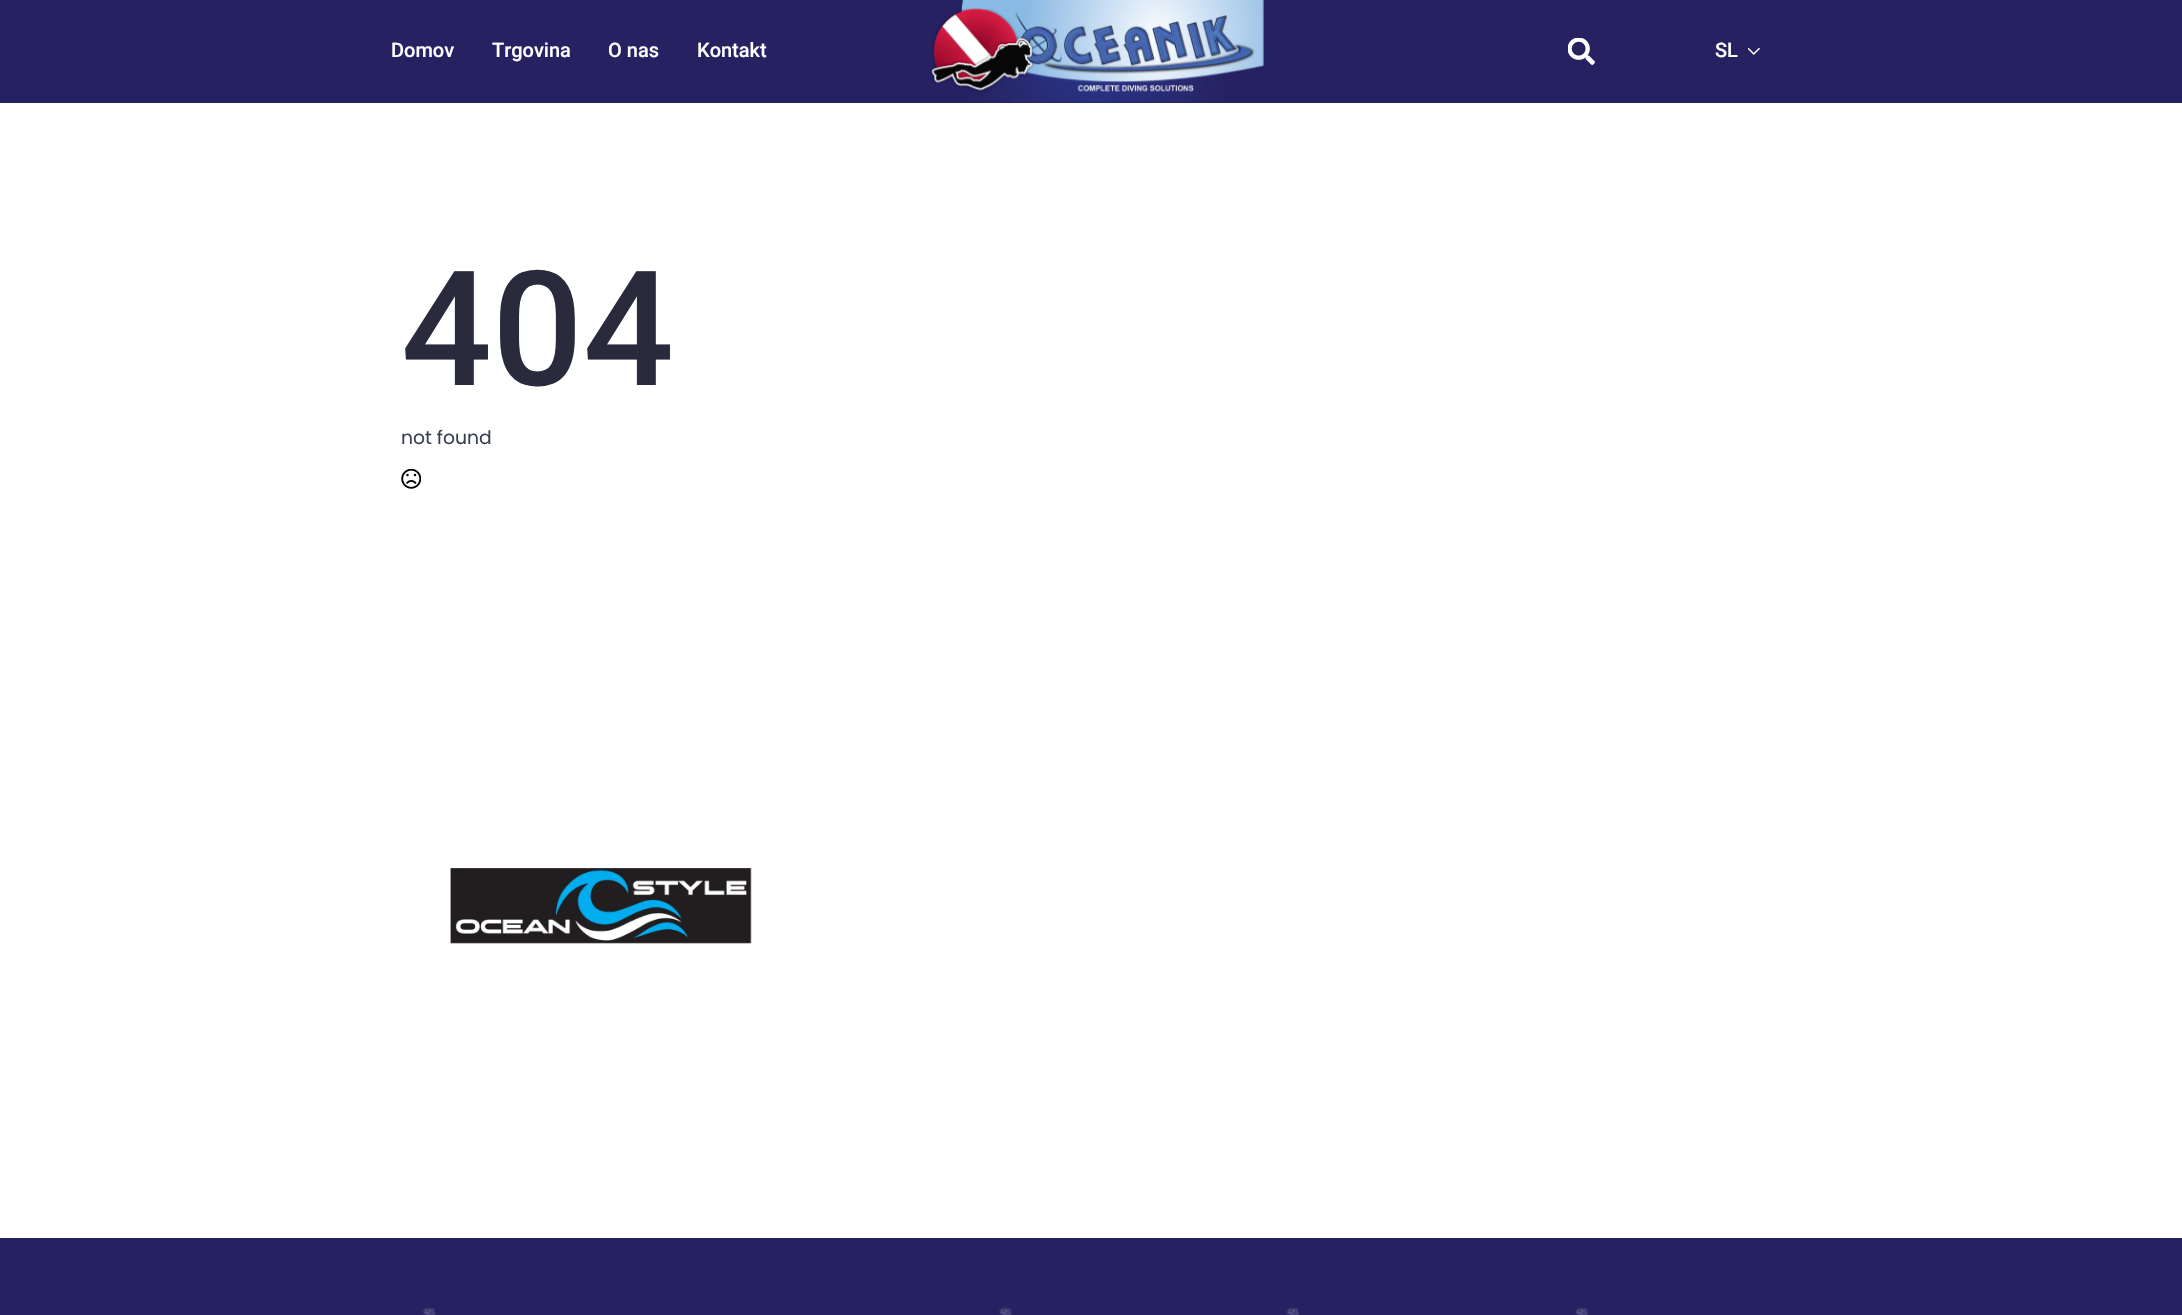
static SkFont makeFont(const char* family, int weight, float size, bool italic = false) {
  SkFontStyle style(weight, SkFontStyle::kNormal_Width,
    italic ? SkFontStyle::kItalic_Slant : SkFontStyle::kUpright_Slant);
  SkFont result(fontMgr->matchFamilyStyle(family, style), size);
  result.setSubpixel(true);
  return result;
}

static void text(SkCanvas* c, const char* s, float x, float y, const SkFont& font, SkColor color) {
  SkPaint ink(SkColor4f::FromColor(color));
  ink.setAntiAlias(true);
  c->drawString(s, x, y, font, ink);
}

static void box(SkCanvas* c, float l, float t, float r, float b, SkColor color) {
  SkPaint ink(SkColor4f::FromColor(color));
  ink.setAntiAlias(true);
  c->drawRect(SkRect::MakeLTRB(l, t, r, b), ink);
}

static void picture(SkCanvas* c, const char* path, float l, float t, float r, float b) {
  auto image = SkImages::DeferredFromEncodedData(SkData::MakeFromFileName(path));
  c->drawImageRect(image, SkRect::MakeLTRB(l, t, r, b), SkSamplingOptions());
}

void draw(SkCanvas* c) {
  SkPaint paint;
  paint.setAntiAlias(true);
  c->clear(0xffffffff);
  box(c, 0, 0, 2182, 103, 0xff262161);
  SkFont face1 = makeFont("Roboto", 500, 20);
  text(c, "Domov", 391, 57, face1, 0xffffffff);
  text(c, "Trgovina", 492, 57, face1, 0xffffffff);
  text(c, "O nas", 608, 57, face1, 0xffffffff);
  text(c, "Kontakt", 697, 57, face1, 0xffffffff);
  picture(c, "img_01.png", 930, 0, 1264, 103);
  picture(c, "img_02.png", 1568, 38, 1595, 65);
  text(c, "SL", 1715, 57, face1, 0xffffffff);
  picture(c, "img_03.png", 1748, 47, 1760, 55);
  SkFont face2 = makeFont("Roboto", 500, 160);
  text(c, "404", 401, 385, face2, 0xff292b3c);
  SkFont face3 = makeFont("Poppins", 400, 18.75f);
  text(c, "not found", 401, 444, face3, 0xff374151);
  picture(c, "img_04.png", 401, 469, 421, 489);
  picture(c, "img_05.png", 450, 868, 752, 944);
  box(c, 0, 1238, 2182, 1315, 0xff262161);
  picture(c, "img_06.png", 422, 1307, 436, 1315);
  picture(c, "img_07.png", 999, 1307, 1013, 1315);
  picture(c, "img_08.png", 1286, 1307, 1300, 1315);
  picture(c, "img_09.png", 1575, 1307, 1589, 1315);
}
